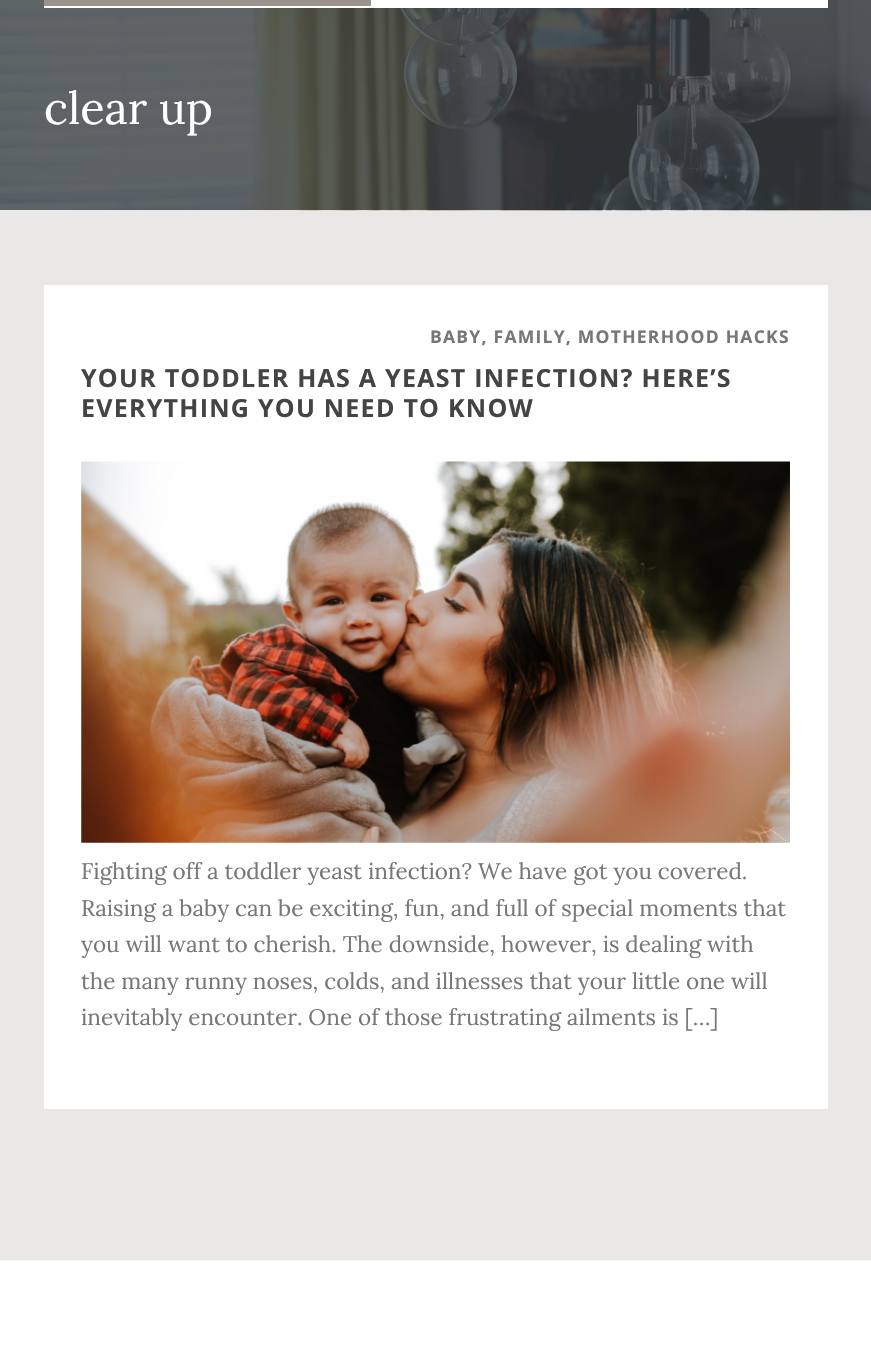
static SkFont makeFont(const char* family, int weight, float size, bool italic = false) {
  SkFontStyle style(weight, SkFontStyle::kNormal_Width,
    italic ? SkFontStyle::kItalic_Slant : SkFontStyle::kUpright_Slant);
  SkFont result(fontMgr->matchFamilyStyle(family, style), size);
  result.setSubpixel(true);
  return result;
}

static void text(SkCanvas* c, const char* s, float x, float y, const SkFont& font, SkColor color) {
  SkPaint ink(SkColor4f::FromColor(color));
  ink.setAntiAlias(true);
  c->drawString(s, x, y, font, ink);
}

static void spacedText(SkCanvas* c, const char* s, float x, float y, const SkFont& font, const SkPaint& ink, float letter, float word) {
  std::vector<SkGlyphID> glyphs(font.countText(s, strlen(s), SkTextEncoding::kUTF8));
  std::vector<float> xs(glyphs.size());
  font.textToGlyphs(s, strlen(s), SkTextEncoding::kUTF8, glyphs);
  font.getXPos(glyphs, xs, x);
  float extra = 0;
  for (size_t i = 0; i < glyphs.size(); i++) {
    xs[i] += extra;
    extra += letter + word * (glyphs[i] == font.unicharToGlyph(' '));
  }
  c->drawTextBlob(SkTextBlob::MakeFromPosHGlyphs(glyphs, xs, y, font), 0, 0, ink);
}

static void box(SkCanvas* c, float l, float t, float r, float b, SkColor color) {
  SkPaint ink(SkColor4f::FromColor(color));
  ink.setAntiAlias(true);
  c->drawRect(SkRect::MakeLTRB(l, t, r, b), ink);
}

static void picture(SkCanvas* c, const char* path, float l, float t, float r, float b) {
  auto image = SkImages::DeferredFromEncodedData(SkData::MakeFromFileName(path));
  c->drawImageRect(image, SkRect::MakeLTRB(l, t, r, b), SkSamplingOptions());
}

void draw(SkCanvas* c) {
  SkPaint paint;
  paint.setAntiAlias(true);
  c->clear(0xffeae8e6);
  picture(c, "img_01.png", 0, 0, 871, 211);
  box(c, 44, 0, 828, 8, 0xffffffff);
  box(c, 44, 0, 371, 6, 0xff9b938c);
  SkFont face1 = makeFont("Lora", 400, 45);
  text(c, "clear up", 44, 124, face1, 0xffffffff);
  box(c, 44, 285, 828, 1109, 0xffffffff);
  SkFont face2 = makeFont("Open Sans", 700, 17.5f);
  paint.setColor(0xff777777);
  spacedText(c, "BABY, FAMILY, MOTHERHOOD HACKS", 430, 343, face2, paint, 1.25f, 0);
  SkFont face3 = makeFont("Open Sans", 700, 25);
  paint.setColor(0xff444444);
  spacedText(c, "YOUR TODDLER HAS A YEAST INFECTION? HERE’S", 81, 387, face3, paint, 1.25f, 0);
  spacedText(c, "EVERYTHING YOU NEED TO KNOW", 81, 417, face3, paint, 1.25f, 0);
  picture(c, "img_02.png", 81, 461, 790, 843);
  SkFont face4 = makeFont("Lora", 400, 22.5f);
  text(c, "Fighting off a toddler yeast infection? We have got you covered.", 81, 879, face4, 0xff777777);
  text(c, "Raising a baby can be exciting, fun, and full of special moments that", 81, 916, face4, 0xff777777);
  text(c, "you will want to cherish. The downside, however, is dealing with", 81, 952, face4, 0xff777777);
  text(c, "the many runny noses, colds, and illnesses that your little one will", 81, 989, face4, 0xff777777);
  text(c, "inevitably encounter. One of those frustrating ailments is […]", 81, 1025, face4, 0xff777777);
  box(c, 0, 1261, 871, 1361, 0xffffffff);
  box(c, 0, 1260, 871, 1261, 0xfff5f5f5);
}
